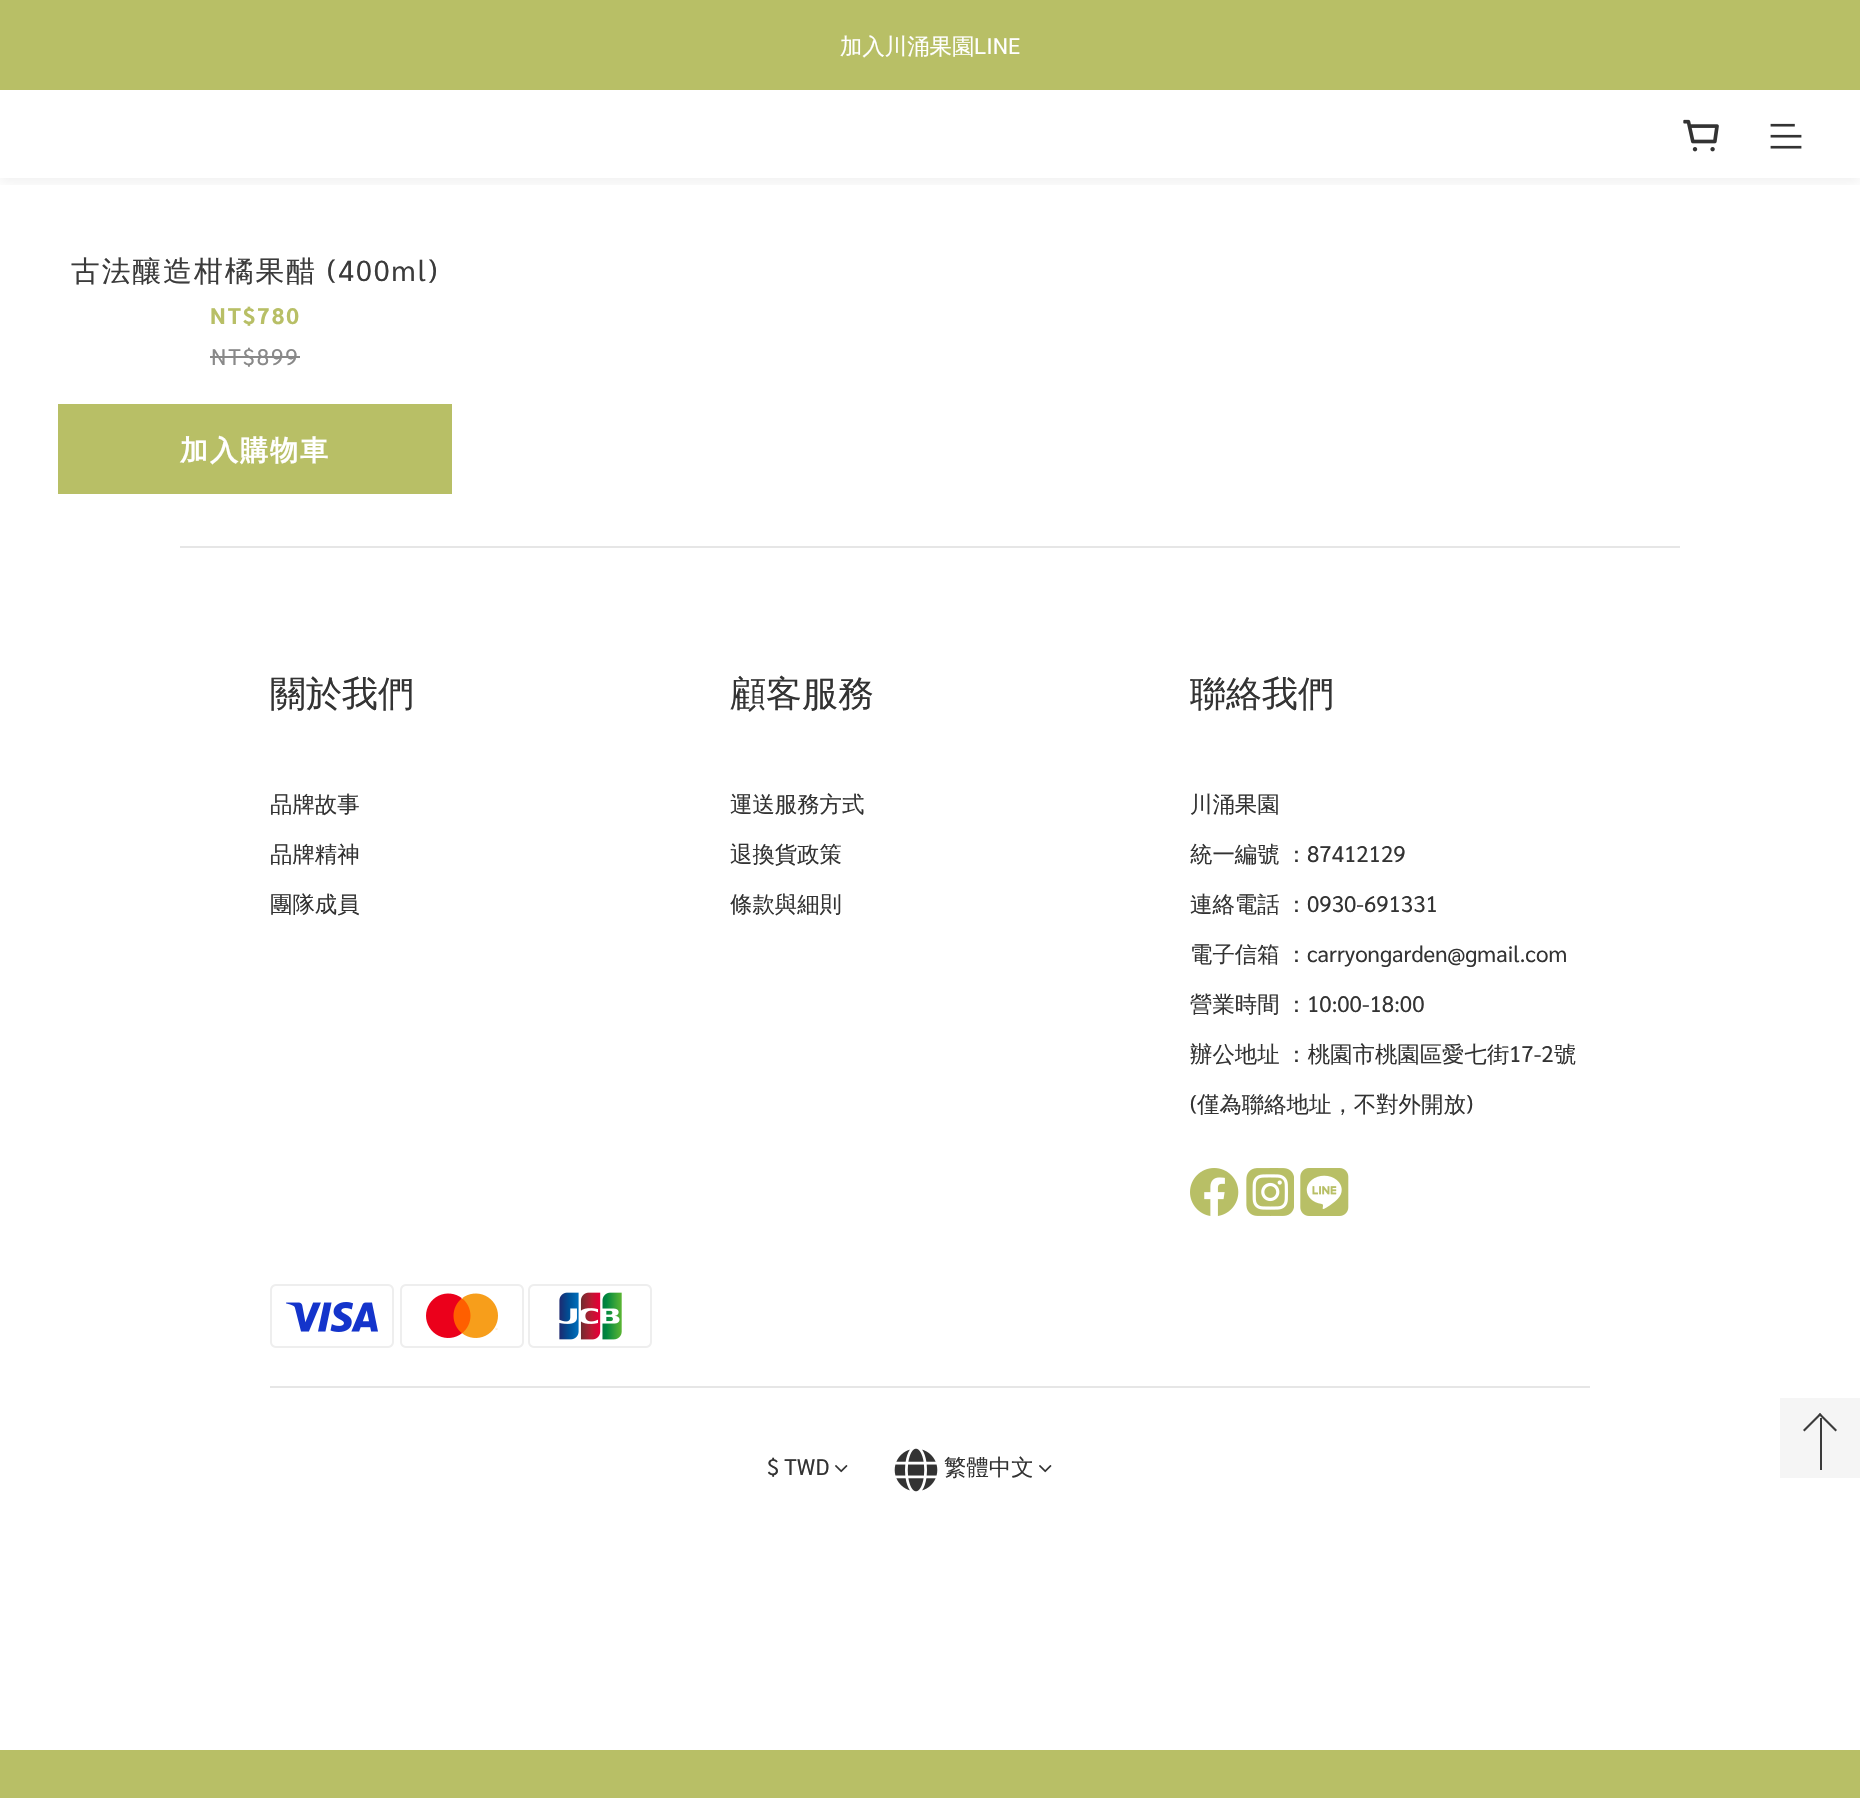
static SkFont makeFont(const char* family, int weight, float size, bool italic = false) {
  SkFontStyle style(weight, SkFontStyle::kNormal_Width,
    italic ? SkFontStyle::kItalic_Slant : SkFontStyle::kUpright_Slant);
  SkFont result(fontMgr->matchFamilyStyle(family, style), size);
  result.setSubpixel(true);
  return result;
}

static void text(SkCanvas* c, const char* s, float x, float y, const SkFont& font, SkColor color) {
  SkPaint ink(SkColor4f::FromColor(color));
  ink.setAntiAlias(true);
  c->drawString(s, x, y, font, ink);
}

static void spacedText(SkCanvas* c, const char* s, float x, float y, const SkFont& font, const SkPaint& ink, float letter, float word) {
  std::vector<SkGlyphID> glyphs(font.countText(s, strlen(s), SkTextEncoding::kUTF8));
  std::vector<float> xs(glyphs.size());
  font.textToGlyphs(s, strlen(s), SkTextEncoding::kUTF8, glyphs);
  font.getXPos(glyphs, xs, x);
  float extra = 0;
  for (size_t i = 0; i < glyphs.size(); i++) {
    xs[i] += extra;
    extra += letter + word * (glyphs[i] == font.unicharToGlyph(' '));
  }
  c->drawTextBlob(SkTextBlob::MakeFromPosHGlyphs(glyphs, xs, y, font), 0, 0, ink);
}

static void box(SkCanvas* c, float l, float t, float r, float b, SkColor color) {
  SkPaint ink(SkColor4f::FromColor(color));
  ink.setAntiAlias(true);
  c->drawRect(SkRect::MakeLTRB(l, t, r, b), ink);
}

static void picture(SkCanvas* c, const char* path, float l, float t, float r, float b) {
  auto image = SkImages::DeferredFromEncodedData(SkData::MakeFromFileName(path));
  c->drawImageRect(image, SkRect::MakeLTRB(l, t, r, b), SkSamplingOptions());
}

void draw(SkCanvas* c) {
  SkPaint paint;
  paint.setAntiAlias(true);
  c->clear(0xffffffff);
  box(c, 0, 0, 1860, 90, 0xffb8bf66);
  SkFont face1 = makeFont("WenQuanYi Zen Hei", 500, 22.4f);
  text(c, "加入川涌果園", 840, 54, face1, 0xffffffff);
  SkFont face2 = makeFont("Sarabun", 400, 22.4f);
  text(c, "LINE", 974, 54, face2, 0xffffffff);
  c->save();
  c->clipRect(SkRect::MakeLTRB(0, 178, 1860, 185));
  paint.setColor(0x0f000000);
  paint.setMaskFilter(SkMaskFilter::MakeBlur(kNormal_SkBlurStyle, 6));
  c->drawRect(SkRect::MakeLTRB(0, 94, 1860, 182), paint);
  paint.setMaskFilter(nullptr);
  c->restore();
  picture(c, "img_01.png", 1683, 119, 1719, 152);
  picture(c, "img_02.png", 1770, 123, 1802, 149);
  SkFont face3 = makeFont("WenQuanYi Zen Hei", 500, 28.75f);
  paint.setColor(0xff3b3b3b);
  spacedText(c, "古法釀造柑橘果醋", 71, 281, face3, paint, 2, 0);
  SkFont face4 = makeFont("Sarabun", 400, 28.75f);
  spacedText(c, "(400ml)", 327, 281, face4, paint, 2, 0);
  SkFont face5 = makeFont("Sarabun", 700, 22.4f);
  paint.setColor(0xffb8bf66);
  spacedText(c, "NT$780", 210, 324, face5, paint, 2, 0);
  paint.setColor(0xff898989);
  spacedText(c, "NT$899", 211, 365, face2, paint, 2, 0);
  box(c, 210, 356, 300, 358, 0xff898989);
  box(c, 58, 404, 452, 494, 0xffb8bf66);
  SkFont face6 = makeFont("WenQuanYi Zen Hei", 700, 28);
  paint.setColor(0xffffffff);
  spacedText(c, "加入購物車", 180, 460, face6, paint, 2, 0);
  box(c, 180, 546, 1680, 548, 0xffe6e6e6);
  SkFont face7 = makeFont("WenQuanYi Zen Hei", 500, 36);
  text(c, "關於我們", 270, 706, face7, 0xff333333);
  text(c, "品牌故事", 270, 812, face1, 0xff333333);
  text(c, "品牌精神", 270, 862, face1, 0xff333333);
  text(c, "團隊成員", 270, 912, face1, 0xff333333);
  text(c, "顧客服務", 730, 706, face7, 0xff333333);
  text(c, "運送服務方式", 730, 812, face1, 0xff333333);
  text(c, "退換貨政策", 730, 862, face1, 0xff333333);
  text(c, "條款與細則", 730, 912, face1, 0xff333333);
  text(c, "聯絡我們", 1190, 706, face7, 0xff333333);
  text(c, "川涌果園", 1190, 812, face1, 0xff333333);
  paint.setColor(0xff333333);
  spacedText(c, "統一編號 ：", 1190, 862, face1, paint, 0, -1);
  text(c, "87412129", 1307, 862, face2, 0xff333333);
  spacedText(c, "連絡電話 ：", 1190, 912, face1, paint, 0, -1);
  text(c, "0930-691331", 1307, 912, face2, 0xff333333);
  spacedText(c, "電子信箱 ：", 1190, 962, face1, paint, 0, -1);
  text(c, "carryongarden@gmail.com", 1307, 962, face2, 0xff333333);
  spacedText(c, "營業時間 ：", 1190, 1012, face1, paint, 0, -1);
  text(c, "10:00-18:00", 1307, 1012, face2, 0xff333333);
  spacedText(c, "辦公地址 ：桃園市桃園區愛七街", 1190, 1062, face1, paint, 0, -1);
  text(c, "17-2", 1509, 1062, face2, 0xff333333);
  text(c, "號", 1554, 1062, face1, 0xff333333);
  text(c, "(", 1190, 1112, face2, 0xff333333);
  text(c, "僅為聯絡地址，不對外開放", 1197, 1112, face1, 0xff333333);
  text(c, ")", 1466, 1112, face2, 0xff333333);
  picture(c, "img_03.png", 1190, 1168, 1239, 1216);
  picture(c, "img_04.png", 1246, 1168, 1294, 1216);
  picture(c, "img_05.png", 1300, 1168, 1349, 1216);
  picture(c, "img_06.png", 270, 1284, 394, 1348);
  picture(c, "img_07.png", 400, 1284, 524, 1348);
  picture(c, "img_08.png", 528, 1284, 652, 1348);
  box(c, 270, 1386, 1590, 1388, 0xffe6e6e6);
  text(c, "$ TWD", 767, 1475, face2, 0xff333333);
  picture(c, "img_09.png", 835, 1465, 848, 1473);
  picture(c, "img_10.png", 894, 1448, 938, 1492);
  text(c, "繁體中文", 944, 1475, face1, 0xff333333);
  picture(c, "img_09.png", 1039, 1465, 1052, 1473);
  box(c, 0, 1750, 1860, 1798, 0xffb8bf66);
  box(c, 1780, 1398, 1860, 1478, 0xfff5f5f5);
  paint.setColor(0xff3b3b3b);
  c->drawPath(SkPathBuilder().moveTo(1820, 1413).lineTo(1837, 1430).lineTo(1835.5f, 1431.5f).lineTo(1818.5f, 1414.5f).close().detach(), paint);
  c->drawPath(SkPathBuilder().moveTo(1820, 1413).lineTo(1821.5f, 1414.5f).lineTo(1804.5f, 1431.5f).lineTo(1803, 1430).close().detach(), paint);
  box(c, 1820, 1418, 1822, 1470, 0xff3b3b3b);
}
